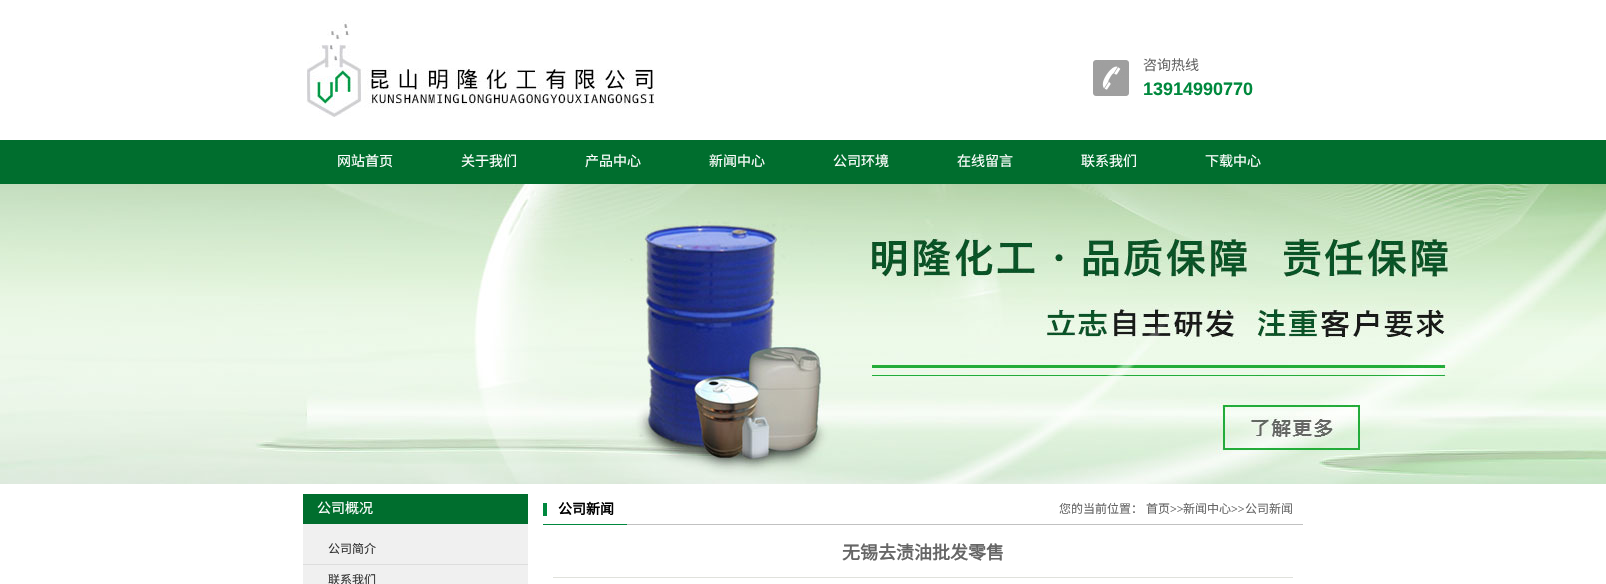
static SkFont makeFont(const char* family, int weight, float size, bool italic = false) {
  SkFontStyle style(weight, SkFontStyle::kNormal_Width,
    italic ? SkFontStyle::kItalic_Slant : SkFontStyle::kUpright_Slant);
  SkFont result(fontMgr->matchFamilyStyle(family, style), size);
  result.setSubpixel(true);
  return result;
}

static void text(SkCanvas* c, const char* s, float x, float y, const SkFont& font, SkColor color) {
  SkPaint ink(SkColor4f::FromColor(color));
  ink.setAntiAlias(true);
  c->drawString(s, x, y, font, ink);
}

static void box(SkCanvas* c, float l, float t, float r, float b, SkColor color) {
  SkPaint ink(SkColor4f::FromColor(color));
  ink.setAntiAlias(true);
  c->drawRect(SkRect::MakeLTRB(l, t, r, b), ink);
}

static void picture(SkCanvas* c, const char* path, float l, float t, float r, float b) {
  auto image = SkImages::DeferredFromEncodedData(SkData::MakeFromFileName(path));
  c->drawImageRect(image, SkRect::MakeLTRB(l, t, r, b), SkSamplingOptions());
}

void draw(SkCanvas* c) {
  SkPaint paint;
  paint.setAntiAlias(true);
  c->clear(0xffffffff);
  picture(c, "img_01.png", 306, 20, 655, 117);
  picture(c, "img_02.png", 1093, 60, 1129, 96);
  SkFont face1 = makeFont("Noto Sans CJK SC", 400, 14);
  text(c, "咨询热线", 1143, 70, face1, 0xff666666);
  SkFont face2 = makeFont("Liberation Sans", 700, 18);
  text(c, "13914990770", 1143, 95, face2, 0xff00893d);
  box(c, 0, 140, 1606, 184, 0xff006e2e);
  text(c, "网站首页", 337, 166, face1, 0xffffffff);
  text(c, "关于我们", 461, 166, face1, 0xffffffff);
  text(c, "产品中心", 585, 166, face1, 0xffffffff);
  text(c, "新闻中心", 709, 166, face1, 0xffffffff);
  text(c, "公司环境", 833, 166, face1, 0xffffffff);
  text(c, "在线留言", 957, 166, face1, 0xffffffff);
  text(c, "联系我们", 1081, 166, face1, 0xffffffff);
  text(c, "下载中心", 1205, 166, face1, 0xffffffff);
  picture(c, "img_03.png", 0, 184, 1606, 484);
  box(c, 303, 524, 528, 584, 0xfff0f0f0);
  box(c, 303, 494, 528, 524, 0xff006e2e);
  text(c, "公司概况", 317, 513, face1, 0xffffffff);
  box(c, 303, 564, 528, 565, 0xffdddddd);
  SkFont face3 = makeFont("Noto Sans CJK SC", 400, 12);
  text(c, "公司简介", 328, 553, face3, 0xff333333);
  text(c, "联系我们", 328, 584, face3, 0xff333333);
  picture(c, "img_04.png", 543, 503, 1303, 525);
  SkFont face4 = makeFont("Noto Sans CJK SC", 700, 14);
  text(c, "公司新闻", 558, 514, face4, 0xff000000);
  text(c, "您的当前位置：", 1059, 513, face3, 0xff666666);
  text(c, "首页", 1146, 513, face3, 0xff666666);
  SkFont face5 = makeFont("Liberation Serif", 400, 12);
  text(c, ">>", 1170, 513, face5, 0xff666666);
  text(c, "新闻中心", 1183, 513, face3, 0xff666666);
  text(c, ">>", 1231, 513, face5, 0xff666666);
  text(c, "公司新闻", 1245, 513, face3, 0xff666666);
  box(c, 553, 577, 1293, 578, 0xffe0e1dc);
  SkFont face6 = makeFont("Noto Sans CJK SC", 700, 18);
  text(c, "无锡去渍油批发零售", 842, 559, face6, 0xff666666);
}
